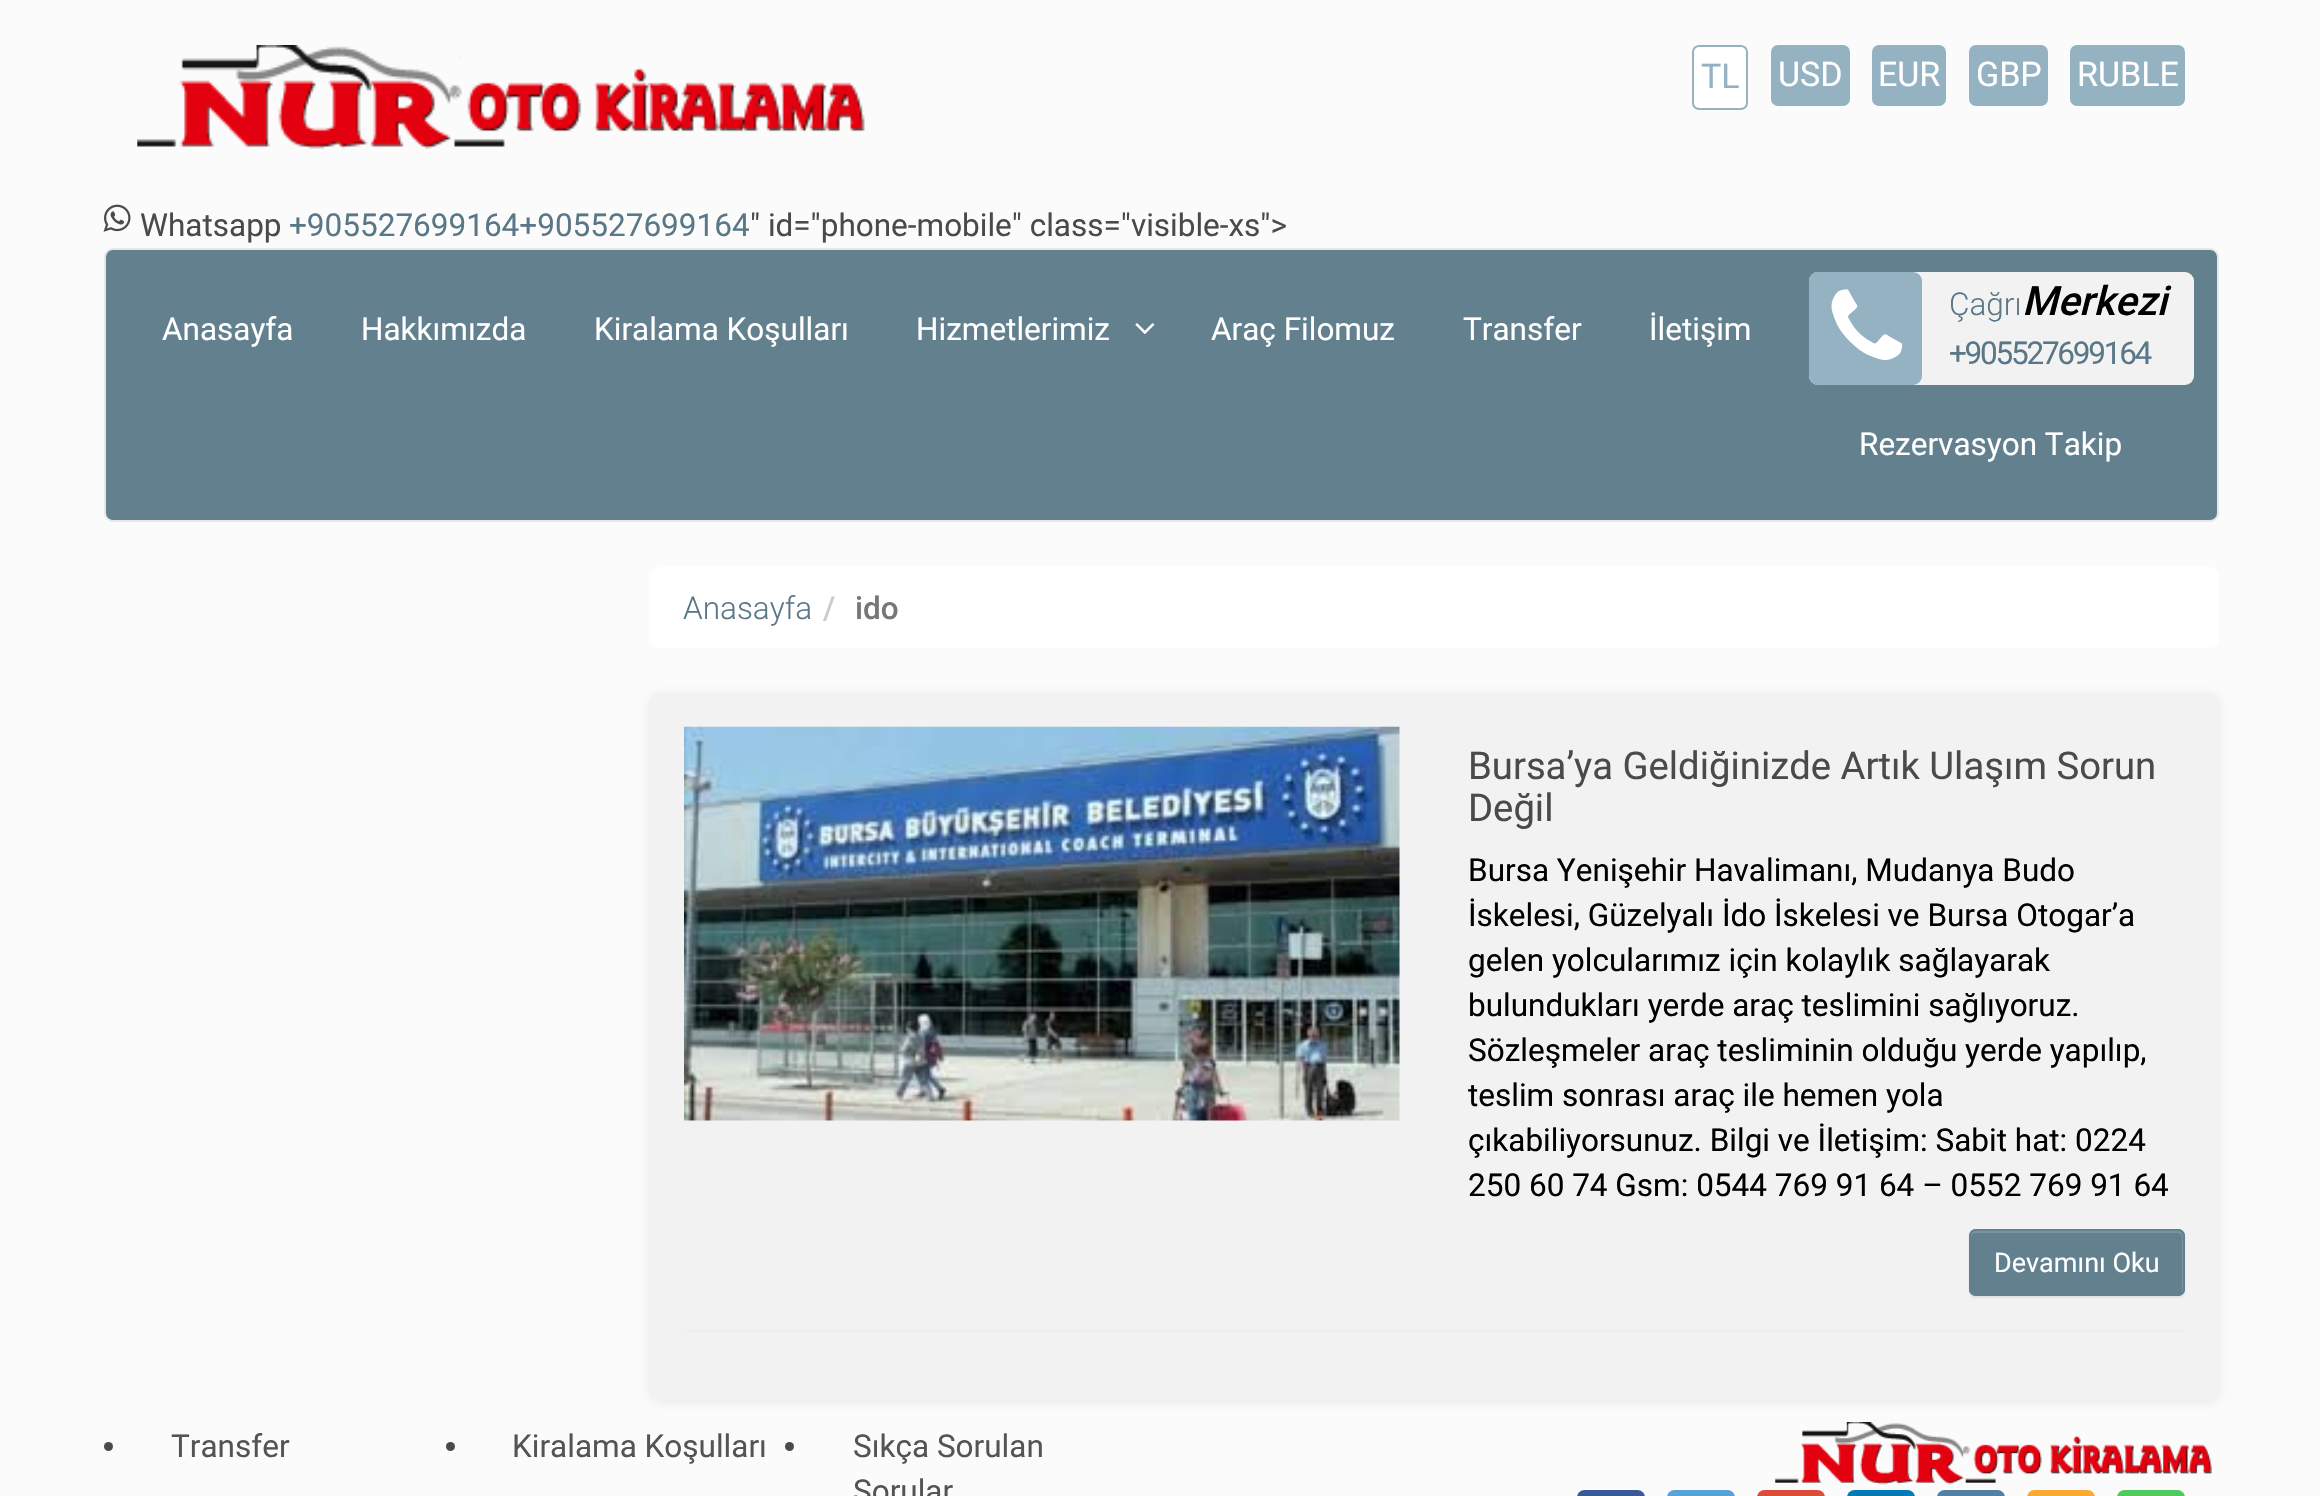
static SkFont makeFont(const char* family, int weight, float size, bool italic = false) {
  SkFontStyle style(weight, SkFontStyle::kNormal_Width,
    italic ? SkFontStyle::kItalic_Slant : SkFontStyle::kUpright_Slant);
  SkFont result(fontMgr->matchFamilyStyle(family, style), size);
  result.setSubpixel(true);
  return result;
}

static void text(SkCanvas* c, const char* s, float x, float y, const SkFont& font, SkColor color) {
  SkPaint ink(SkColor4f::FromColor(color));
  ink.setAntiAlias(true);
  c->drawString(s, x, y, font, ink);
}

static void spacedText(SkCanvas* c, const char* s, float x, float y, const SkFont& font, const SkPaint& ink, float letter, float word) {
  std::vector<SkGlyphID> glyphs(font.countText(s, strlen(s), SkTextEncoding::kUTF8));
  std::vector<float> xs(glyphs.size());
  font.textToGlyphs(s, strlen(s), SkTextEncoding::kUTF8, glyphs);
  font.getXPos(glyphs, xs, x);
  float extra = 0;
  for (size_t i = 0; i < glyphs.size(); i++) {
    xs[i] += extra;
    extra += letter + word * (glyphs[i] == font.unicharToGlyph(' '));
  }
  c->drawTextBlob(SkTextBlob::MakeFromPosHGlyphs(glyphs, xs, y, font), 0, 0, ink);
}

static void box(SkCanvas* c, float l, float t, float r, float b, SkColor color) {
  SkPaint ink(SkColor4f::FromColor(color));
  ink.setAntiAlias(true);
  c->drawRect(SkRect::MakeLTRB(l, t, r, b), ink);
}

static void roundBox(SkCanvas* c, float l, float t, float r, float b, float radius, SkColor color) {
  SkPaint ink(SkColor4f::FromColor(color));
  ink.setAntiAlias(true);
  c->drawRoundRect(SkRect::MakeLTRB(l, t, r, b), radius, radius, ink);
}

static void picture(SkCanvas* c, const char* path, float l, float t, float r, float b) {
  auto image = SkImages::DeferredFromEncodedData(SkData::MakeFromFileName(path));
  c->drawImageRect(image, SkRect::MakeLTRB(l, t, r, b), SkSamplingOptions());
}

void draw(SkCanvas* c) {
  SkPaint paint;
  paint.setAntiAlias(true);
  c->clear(0xfffbfbfb);
  picture(c, "img_01.png", 137, 45, 865, 149);
  paint.setColor(0xffffffff);
  c->drawRoundRect(SkRect::MakeLTRB(1693, 46, 1747, 109), 6, 6, paint);
  paint.setStyle(SkPaint::kStroke_Style);
  paint.setStrokeWidth(2);
  paint.setColor(0xff95b2c2);
  c->drawRoundRect(SkRect::MakeLTRB(1693, 46, 1747, 109), 6, 6, paint);
  SkFont face1 = makeFont("Roboto", 400, 34);
  text(c, "TL", 1701, 88, face1, 0xff95b2c2);
  roundBox(c, 1771, 45, 1850, 106, 7, 0xff95b2c2);
  text(c, "USD", 1778, 86, face1, 0xffffffff);
  roundBox(c, 1872, 45, 1946, 106, 7, 0xff95b2c2);
  text(c, "EUR", 1878, 86, face1, 0xffffffff);
  roundBox(c, 1969, 45, 2048, 106, 7, 0xff95b2c2);
  text(c, "GBP", 1976, 86, face1, 0xffffffff);
  roundBox(c, 2070, 45, 2185, 106, 7, 0xff95b2c2);
  text(c, "RUBLE", 2077, 86, face1, 0xffffffff);
  picture(c, "img_02.png", 103, 204, 131, 232);
  SkFont face2 = makeFont("Roboto", 400, 31.5f);
  text(c, "Whatsapp", 140, 236, face2, 0xff4a4a4a);
  text(c, "+905527699164+905527699164", 289, 236, face2, 0xff5a7787);
  text(c, "\" id=\"phone-mobile\" class=\"visible-xs\">", 750, 236, face2, 0xff4a4a4a);
  paint.setStyle(SkPaint::kFill_Style);
  paint.setColor(0xff63808e);
  c->drawRoundRect(SkRect::MakeLTRB(105, 249, 2218, 521), 8, 8, paint);
  paint.setStyle(SkPaint::kStroke_Style);
  paint.setColor(0xffe7e7e7);
  c->drawRoundRect(SkRect::MakeLTRB(105, 249, 2218, 521), 8, 8, paint);
  text(c, "Anasayfa", 162, 340, face2, 0xffffffff);
  text(c, "Hakkımızda", 361, 340, face2, 0xffffffff);
  text(c, "Kiralama Koşulları", 594, 340, face2, 0xffffffff);
  text(c, "Hizmetlerimiz", 916, 340, face2, 0xffffffff);
  picture(c, "img_03.png", 1135, 323, 1155, 334);
  text(c, "Araç Filomuz", 1211, 340, face2, 0xffffffff);
  text(c, "Transfer", 1463, 340, face2, 0xffffffff);
  text(c, "İletişim", 1649, 340, face2, 0xffffffff);
  roundBox(c, 1809, 272, 2194, 385, 9, 0xfff2f2f2);
  roundBox(c, 1809, 272, 1922, 385, 9, 0xff95b2c2);
  picture(c, "img_04.png", 1831, 289, 1903, 360);
  SkFont face3 = makeFont("Roboto", 300, 31.5f);
  text(c, "Çağrı", 1949, 315, face3, 0xff5a7787);
  SkFont face4 = makeFont("Roboto", 500, 40.5f, true);
  text(c, "Merkezi", 2022, 315, face4, 0xff000000);
  paint.setStyle(SkPaint::kFill_Style);
  paint.setColor(0xff5a7787);
  spacedText(c, "+905527699164", 1949, 364, face2, paint, -2.25f, 0);
  text(c, "Rezervasyon Takip", 1859, 455, face2, 0xffffffff);
  roundBox(c, 650, 567, 2219, 648, 9, 0xffffffff);
  text(c, "Anasayfa", 683, 619, face3, 0xff5a7787);
  SkFont face5 = makeFont("Roboto", 500, 31.5f);
  text(c, "/", 823, 619, face5, 0xffcccccc);
  text(c, "ido", 855, 619, face5, 0xff777777);
  paint.setColor(0x12000000);
  paint.setMaskFilter(SkMaskFilter::MakeBlur(kNormal_SkBlurStyle, 5.5f));
  c->drawRoundRect(SkRect::MakeLTRB(650, 695, 2219, 1402), 9, 9, paint);
  paint.setMaskFilter(nullptr);
  roundBox(c, 650, 693, 2219, 1400, 9, 0xfff2f2f2);
  picture(c, "img_05.png", 684, 726, 1400, 1121);
  SkFont face6 = makeFont("Roboto", 400, 38.25f);
  text(c, "Bursa’ya Geldiğinizde Artık Ulaşım Sorun", 1468, 779, face6, 0xff4a4a4a);
  text(c, "Değil", 1468, 821, face6, 0xff4a4a4a);
  text(c, "Bursa Yenişehir Havalimanı, Mudanya Budo", 1468, 881, face2, 0xff000000);
  text(c, "İskelesi, Güzelyalı İdo İskelesi ve Bursa Otogar’a", 1468, 926, face2, 0xff000000);
  text(c, "gelen yolcularımız için kolaylık sağlayarak", 1468, 971, face2, 0xff000000);
  text(c, "bulundukları yerde araç teslimini sağlıyoruz.", 1468, 1016, face2, 0xff000000);
  text(c, "Sözleşmeler araç tesliminin olduğu yerde yapılıp,", 1468, 1061, face2, 0xff000000);
  text(c, "teslim sonrası araç ile hemen yola", 1468, 1106, face2, 0xff000000);
  text(c, "çıkabiliyorsunuz. Bilgi ve İletişim: Sabit hat: 0224", 1468, 1151, face2, 0xff000000);
  text(c, "250 60 74 Gsm: 0544 769 91 64 – 0552 769 91 64", 1468, 1196, face2, 0xff000000);
  paint.setMaskFilter(SkMaskFilter::MakeBlur(kNormal_SkBlurStyle, 1));
  c->drawRoundRect(SkRect::MakeLTRB(1969, 1231, 2185, 1298), 7, 7, paint);
  paint.setMaskFilter(nullptr);
  roundBox(c, 1969, 1229, 2185, 1296, 7, 0xff63808e);
  paint.setColor(0xff7a939f);
  c->drawPath(SkPathBuilder().moveTo(1976, 1233).lineTo(2178, 1233).cubicTo(2180, 1233, 2182, 1235, 2182, 1238).lineTo(2182, 1292).cubicTo(2183, 1291, 2183, 1290, 2183, 1289).lineTo(2183, 1236).cubicTo(2183, 1233, 2181, 1231, 2178, 1231).lineTo(1976, 1231).cubicTo(1973, 1231, 1971, 1233, 1971, 1236).lineTo(1971, 1238).cubicTo(1971, 1235, 1973, 1233, 1976, 1233).close().detach(), paint);
  paint.setStyle(SkPaint::kStroke_Style);
  paint.setColor(0xff63808e);
  c->drawRoundRect(SkRect::MakeLTRB(1970, 1230, 2184, 1295), 6, 6, paint);
  SkFont face7 = makeFont("Roboto", 400, 27);
  text(c, "Devamını Oku", 1994, 1272, face7, 0xffffffff);
  box(c, 684, 1330, 2185, 1332, 0xffeeeeee);
  paint.setStyle(SkPaint::kFill_Style);
  paint.setColor(0xff4a4a4a);
  c->drawCircle(108.5f, 1446.5f, 4.5f, paint);
  text(c, "Transfer", 171, 1457, face2, 0xff545454);
  c->drawCircle(450.5f, 1446.5f, 4.5f, paint);
  text(c, "Kiralama Koşulları", 512, 1457, face2, 0xff545454);
  c->drawCircle(789.5f, 1446.5f, 4.5f, paint);
  text(c, "Sıkça Sorulan", 853, 1457, face2, 0xff545454);
  text(c, "Sorular", 853, 1502, face2, 0xff545454);
  picture(c, "img_06.png", 1775, 1422, 2212, 1485);
  roundBox(c, 1577, 1490, 1645, 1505, 9, 0xff3b5998);
  roundBox(c, 1667, 1490, 1735, 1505, 9, 0xff56a3d9);
  roundBox(c, 1757, 1490, 1825, 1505, 9, 0xffdd4b39);
  roundBox(c, 1847, 1490, 1915, 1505, 9, 0xff007bb6);
  roundBox(c, 1937, 1490, 2005, 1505, 9, 0xff5280a5);
  roundBox(c, 2027, 1490, 2095, 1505, 9, 0xfffba933);
  roundBox(c, 2117, 1490, 2185, 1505, 9, 0xff52c95d);
}
